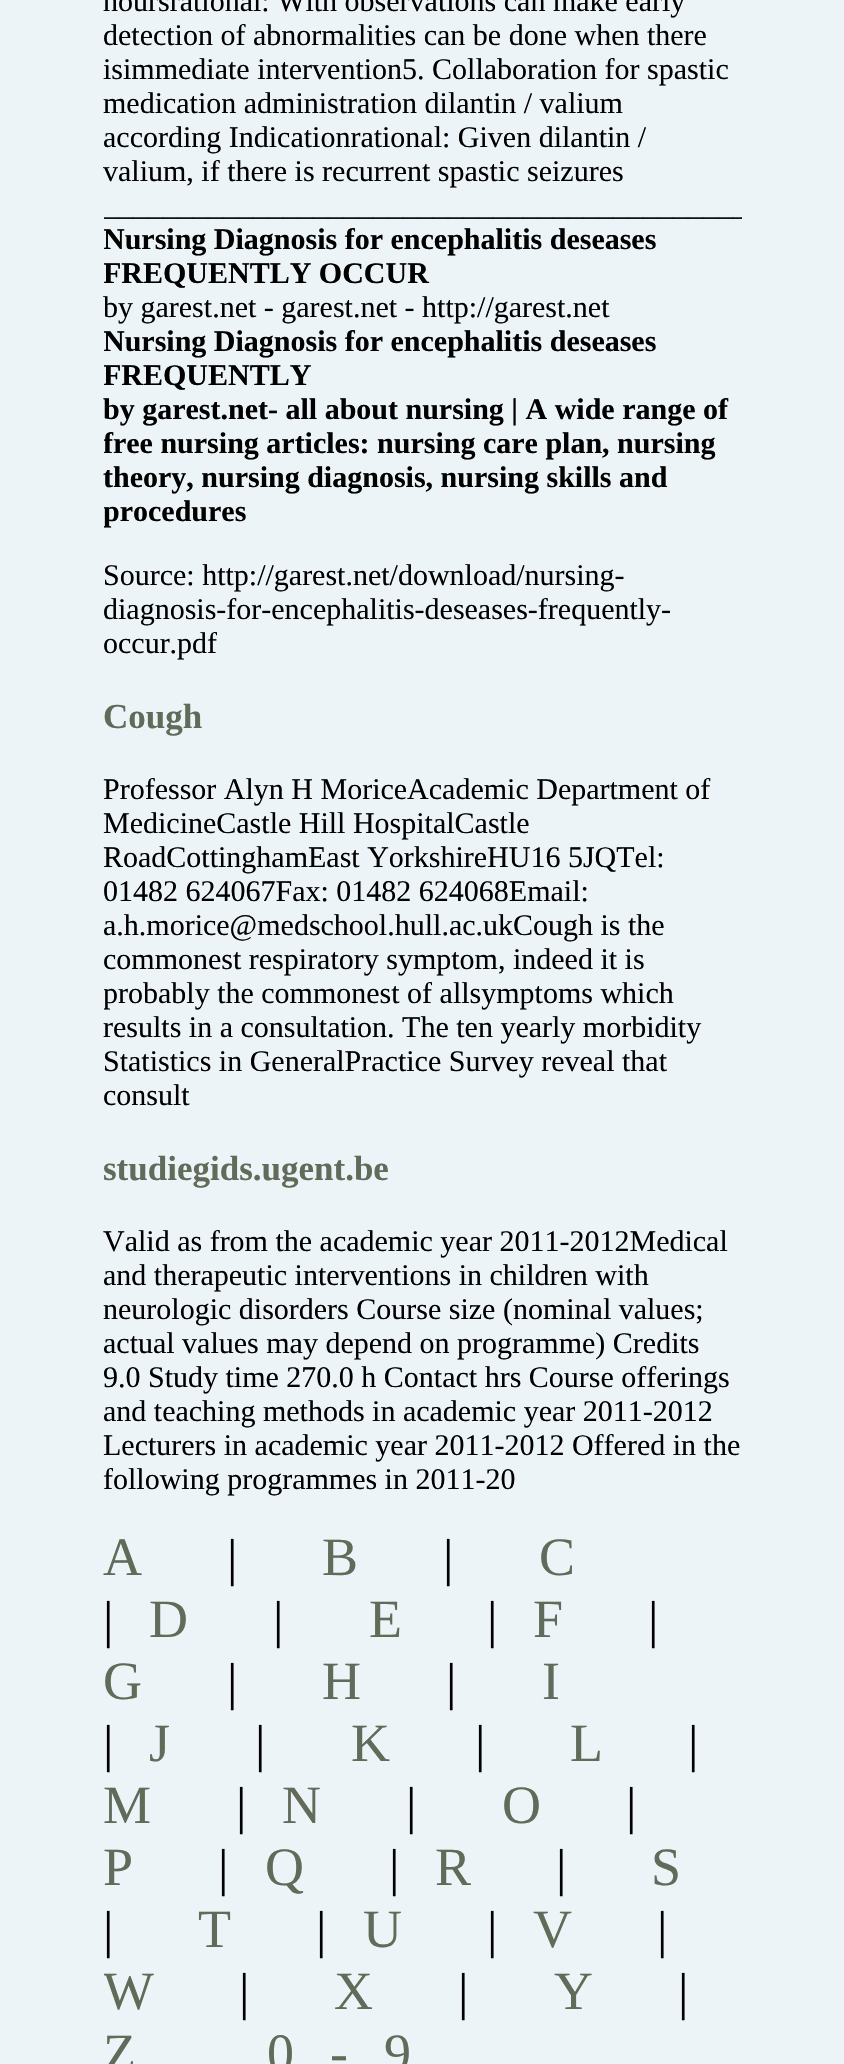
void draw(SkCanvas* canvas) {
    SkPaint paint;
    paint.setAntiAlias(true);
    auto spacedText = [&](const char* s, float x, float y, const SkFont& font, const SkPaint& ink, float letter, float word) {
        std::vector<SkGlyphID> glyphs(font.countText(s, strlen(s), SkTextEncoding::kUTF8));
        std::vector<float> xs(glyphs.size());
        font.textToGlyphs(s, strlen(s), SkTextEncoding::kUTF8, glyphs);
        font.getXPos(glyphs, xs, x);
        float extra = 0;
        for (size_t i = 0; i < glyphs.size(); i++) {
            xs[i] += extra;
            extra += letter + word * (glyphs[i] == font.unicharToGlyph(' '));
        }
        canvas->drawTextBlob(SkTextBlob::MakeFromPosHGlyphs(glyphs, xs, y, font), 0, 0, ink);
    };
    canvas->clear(0xFFECF4F8);
    SkFont font1(fontMgr->matchFamilyStyle("Liberation Serif", SkFontStyle::Normal()), 30);
    font1.setSubpixel(true);
    paint.setColor(0xFF000000);
    canvas->drawString("hoursrational: With observations can make early", 103, 11, font1, paint);
    canvas->drawString("detection of abnormalities can be done when there", 103, 45, font1, paint);
    canvas->drawString("isimmediate intervention5. Collaboration for spastic", 103, 79, font1, paint);
    canvas->drawString("medication administration dilantin / valium", 103, 113, font1, paint);
    canvas->drawString("according Indicationrational: Given dilantin /", 103, 147, font1, paint);
    canvas->drawString("valium, if there is recurrent spastic seizures", 103, 181, font1, paint);
    canvas->save();
    canvas->clipRect(SkRect::MakeXYWH(104, 0, 638, 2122));
    canvas->drawString("___________________________________________", 103, 215, font1, paint);
    SkFont font2(fontMgr->matchFamilyStyle("Liberation Serif", SkFontStyle::Bold()), 30);
    font2.setSubpixel(true);
    canvas->drawString("Nursing Diagnosis for encephalitis deseases", 103, 249, font2, paint);
    canvas->drawString("FREQUENTLY OCCUR", 103, 283, font2, paint);
    canvas->restore();
    canvas->drawString("by garest.net - garest.net - http://garest.net", 103, 317, font1, paint);
    canvas->save();
    canvas->clipRect(SkRect::MakeXYWH(104, 0, 638, 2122));
    canvas->drawString("Nursing Diagnosis for encephalitis deseases", 103, 351, font2, paint);
    canvas->drawString("FREQUENTLY", 103, 385, font2, paint);
    canvas->restore();
    canvas->drawString("by garest.net- all about nursing | A wide range of", 103, 419, font2, paint);
    canvas->save();
    canvas->clipRect(SkRect::MakeXYWH(104, 0, 638, 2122));
    canvas->drawString("free nursing articles: nursing care plan, nursing", 103, 453, font2, paint);
    canvas->restore();
    canvas->drawString("theory, nursing diagnosis, nursing skills and", 103, 487, font2, paint);
    canvas->save();
    canvas->clipRect(SkRect::MakeXYWH(104, 0, 638, 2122));
    canvas->drawString("procedures", 103, 521, font2, paint);
    canvas->restore();
    canvas->drawString("Source: http://garest.net/download/nursing-", 103, 585, font1, paint);
    canvas->drawString("diagnosis-for-encephalitis-deseases-frequently-", 103, 619, font1, paint);
    canvas->drawString("occur.pdf", 103, 653, font1, paint);
    SkFont font3(fontMgr->matchFamilyStyle("Liberation Serif", SkFontStyle::Bold()), 35);
    font3.setSubpixel(true);
    paint.setColor(0xFF626B5A);
    canvas->drawString("Cough", 103, 728, font3, paint);
    paint.setColor(0xFF000000);
    canvas->drawString("Professor Alyn H MoriceAcademic Department of", 103, 799, font1, paint);
    canvas->drawString("MedicineCastle Hill HospitalCastle", 103, 833, font1, paint);
    canvas->drawString("RoadCottinghamEast YorkshireHU16 5JQTel:", 103, 867, font1, paint);
    canvas->drawString("01482 624067Fax: 01482 624068Email:", 103, 901, font1, paint);
    canvas->drawString("a.h.morice@medschool.hull.ac.ukCough is the", 103, 935, font1, paint);
    canvas->drawString("commonest respiratory symptom, indeed it is", 103, 969, font1, paint);
    canvas->save();
    canvas->clipRect(SkRect::MakeXYWH(104, 0, 638, 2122));
    canvas->drawString("probably the commonest of allsymptoms which", 103, 1003, font1, paint);
    canvas->restore();
    canvas->drawString("results in a consultation. The ten yearly morbidity", 103, 1037, font1, paint);
    canvas->drawString("Statistics in GeneralPractice Survey reveal that", 103, 1071, font1, paint);
    canvas->drawString("consult", 103, 1105, font1, paint);
    paint.setColor(0xFF626B5A);
    canvas->drawString("studiegids.ugent.be", 103, 1180, font3, paint);
    paint.setColor(0xFF000000);
    canvas->drawString("Valid as from the academic year 2011-2012Medical", 103, 1251, font1, paint);
    canvas->drawString("and therapeutic interventions in children with", 103, 1285, font1, paint);
    canvas->drawString("neurologic disorders Course size (nominal values;", 103, 1319, font1, paint);
    canvas->drawString("actual values may depend on programme) Credits", 103, 1353, font1, paint);
    canvas->drawString("9.0 Study time 270.0 h Contact hrs Course offerings", 103, 1387, font1, paint);
    canvas->drawString("and teaching methods in academic year 2011-2012", 103, 1421, font1, paint);
    canvas->drawString("Lecturers in academic year 2011-2012 Offered in the", 103, 1455, font1, paint);
    canvas->drawString("following programmes in 2011-20", 103, 1489, font1, paint);
    SkFont font4(fontMgr->matchFamilyStyle("Liberation Serif", SkFontStyle::Normal()), 54);
    font4.setSubpixel(true);
    paint.setColor(0xFF626B5A);
    spacedText("A", 103, 1575, font4, paint, 36, 0);
    SkFont font5(fontMgr->matchFamilyStyle("Liberation Serif", SkFontStyle::Normal()), 52);
    font5.setSubpixel(true);
    paint.setColor(0xFF000000);
    spacedText("|", 227, 1575, font5, paint, 36, 0);
    paint.setColor(0xFF626B5A);
    spacedText("B", 322, 1575, font4, paint, 36, 0);
    paint.setColor(0xFF000000);
    spacedText("|", 443, 1575, font5, paint, 36, 0);
    paint.setColor(0xFF626B5A);
    spacedText("C", 539, 1575, font4, paint, 36, 0);
    paint.setColor(0xFF000000);
    spacedText("|", 103, 1637, font5, paint, 36, 0);
    paint.setColor(0xFF626B5A);
    spacedText("D", 149, 1637, font4, paint, 36, 0);
    paint.setColor(0xFF000000);
    spacedText("|", 273, 1637, font5, paint, 36, 0);
    paint.setColor(0xFF626B5A);
    spacedText("E", 369, 1637, font4, paint, 36, 0);
    paint.setColor(0xFF000000);
    spacedText("|", 487, 1637, font5, paint, 36, 0);
    paint.setColor(0xFF626B5A);
    spacedText("F", 533, 1637, font4, paint, 36, 0);
    paint.setColor(0xFF000000);
    spacedText("|", 648, 1637, font5, paint, 36, 0);
    paint.setColor(0xFF626B5A);
    spacedText("G", 103, 1699, font4, paint, 36, 0);
    paint.setColor(0xFF000000);
    spacedText("|", 227, 1699, font5, paint, 36, 0);
    paint.setColor(0xFF626B5A);
    spacedText("H", 322, 1699, font4, paint, 36, 0);
    paint.setColor(0xFF000000);
    spacedText("|", 446, 1699, font5, paint, 36, 0);
    paint.setColor(0xFF626B5A);
    spacedText("I", 542, 1699, font4, paint, 36, 0);
    paint.setColor(0xFF000000);
    spacedText("|", 103, 1761, font5, paint, 36, 0);
    paint.setColor(0xFF626B5A);
    spacedText("J", 149, 1761, font4, paint, 36, 0);
    paint.setColor(0xFF000000);
    spacedText("|", 255, 1761, font5, paint, 36, 0);
    paint.setColor(0xFF626B5A);
    spacedText("K", 351, 1761, font4, paint, 36, 0);
    paint.setColor(0xFF000000);
    spacedText("|", 475, 1761, font5, paint, 36, 0);
    paint.setColor(0xFF626B5A);
    spacedText("L", 570, 1761, font4, paint, 36, 0);
    paint.setColor(0xFF000000);
    spacedText("|", 688, 1761, font5, paint, 36, 0);
    paint.setColor(0xFF626B5A);
    spacedText("M", 103, 1823, font4, paint, 36, 0);
    paint.setColor(0xFF000000);
    spacedText("|", 236, 1823, font5, paint, 36, 0);
    paint.setColor(0xFF626B5A);
    spacedText("N", 282, 1823, font4, paint, 36, 0);
    paint.setColor(0xFF000000);
    spacedText("|", 406, 1823, font5, paint, 36, 0);
    paint.setColor(0xFF626B5A);
    spacedText("O", 502, 1823, font4, paint, 36, 0);
    paint.setColor(0xFF000000);
    spacedText("|", 626, 1823, font5, paint, 36, 0);
    paint.setColor(0xFF626B5A);
    spacedText("P", 103, 1885, font4, paint, 36, 0);
    paint.setColor(0xFF000000);
    spacedText("|", 218, 1885, font5, paint, 36, 0);
    paint.setColor(0xFF626B5A);
    spacedText("Q", 265, 1885, font4, paint, 36, 0);
    paint.setColor(0xFF000000);
    spacedText("|", 389, 1885, font5, paint, 36, 0);
    paint.setColor(0xFF626B5A);
    spacedText("R", 435, 1885, font4, paint, 36, 0);
    paint.setColor(0xFF000000);
    spacedText("|", 556, 1885, font5, paint, 36, 0);
    paint.setColor(0xFF626B5A);
    spacedText("S", 651, 1885, font4, paint, 36, 0);
    paint.setColor(0xFF000000);
    spacedText("|", 103, 1947, font5, paint, 36, 0);
    paint.setColor(0xFF626B5A);
    spacedText("T", 198, 1947, font4, paint, 36, 0);
    paint.setColor(0xFF000000);
    spacedText("|", 316, 1947, font5, paint, 36, 0);
    paint.setColor(0xFF626B5A);
    spacedText("U", 363, 1947, font4, paint, 36, 0);
    paint.setColor(0xFF000000);
    spacedText("|", 487, 1947, font5, paint, 36, 0);
    paint.setColor(0xFF626B5A);
    spacedText("V", 533, 1947, font4, paint, 36, 0);
    paint.setColor(0xFF000000);
    spacedText("|", 657, 1947, font5, paint, 36, 0);
    canvas->save();
    canvas->clipRect(SkRect::MakeXYWH(104, 0, 638, 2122));
    paint.setColor(0xFF626B5A);
    spacedText("W", 103, 2009, font4, paint, 36, 0);
    canvas->restore();
    paint.setColor(0xFF000000);
    spacedText("|", 239, 2009, font5, paint, 36, 0);
    paint.setColor(0xFF626B5A);
    spacedText("X", 334, 2009, font4, paint, 36, 0);
    paint.setColor(0xFF000000);
    spacedText("|", 458, 2009, font5, paint, 36, 0);
    paint.setColor(0xFF626B5A);
    spacedText("Y", 554, 2009, font4, paint, 36, 0);
    paint.setColor(0xFF000000);
    spacedText("|", 678, 2009, font5, paint, 36, 0);
    paint.setColor(0xFF626B5A);
    spacedText("Z", 103, 2071, font4, paint, 36, 0);
    spacedText("0-9", 267, 2071, font4, paint, 36, 0);
}
